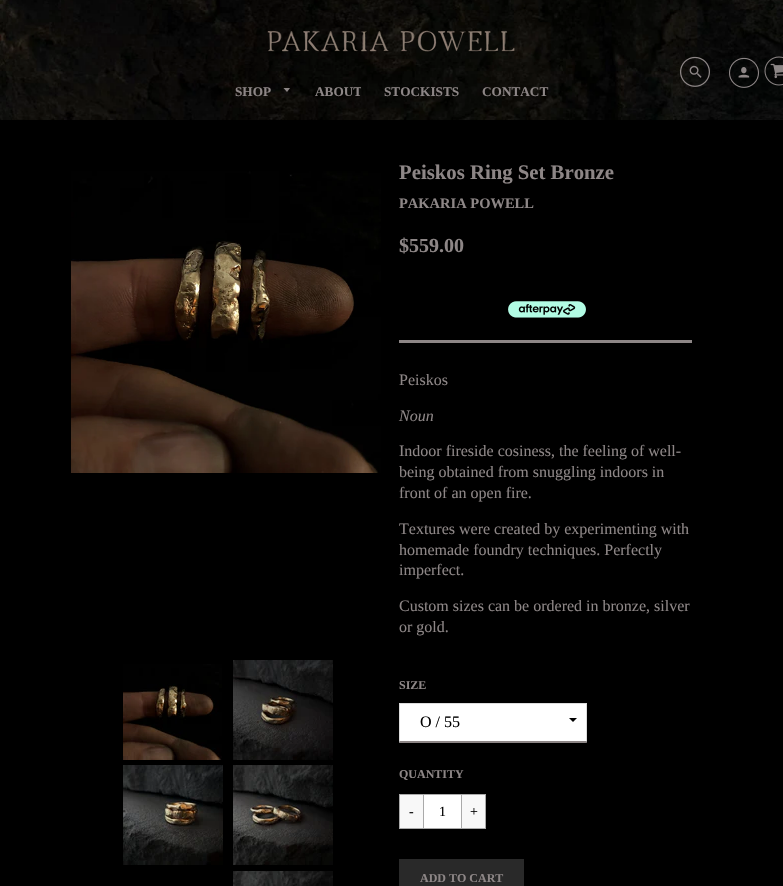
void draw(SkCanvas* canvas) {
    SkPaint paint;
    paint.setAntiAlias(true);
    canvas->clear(0xFF000000);
    canvas->drawImageRect(SkImages::DeferredFromEncodedData(SkData::MakeFromFileName("img1.png")), SkRect::MakeXYWH(0, 0, 783, 120), SkSamplingOptions());
    canvas->drawImageRect(SkImages::DeferredFromEncodedData(SkData::MakeFromFileName("img2.png")), SkRect::MakeXYWH(680, 56, 30, 31), SkSamplingOptions());
    canvas->drawImageRect(SkImages::DeferredFromEncodedData(SkData::MakeFromFileName("img3.png")), SkRect::MakeXYWH(729, 57, 30, 31), SkSamplingOptions());
    canvas->drawImageRect(SkImages::DeferredFromEncodedData(SkData::MakeFromFileName("img4.png")), SkRect::MakeXYWH(764, 56, 19, 30), SkSamplingOptions());
    canvas->drawImageRect(SkImages::DeferredFromEncodedData(SkData::MakeFromFileName("img5.png")), SkRect::MakeXYWH(267, 30, 248, 22), SkSamplingOptions());
    SkFont font1(fontMgr->matchFamilyStyle("Liberation Serif", SkFontStyle::Bold()), 13.25f);
    font1.setSubpixel(true);
    paint.setColor(0xFF8D8686);
    canvas->drawString("SHOP", 235, 96, font1, paint);
    canvas->drawPath(SkPathBuilder().moveTo(283.5f, 88).lineTo(287, 92).lineTo(290, 88).close().detach(), paint);
    canvas->save();
    canvas->clipRect(SkRect::MakeXYWH(315, 83, 46, 18));
    canvas->drawString("ABOUT", 315, 96, font1, paint);
    canvas->restore();
    canvas->drawString("STOCKISTS", 384, 96, font1, paint);
    canvas->drawString("CONTACT", 482, 96, font1, paint);
    canvas->drawImageRect(SkImages::DeferredFromEncodedData(SkData::MakeFromFileName("img6.png")), SkRect::MakeXYWH(71, 171, 310, 302), SkSamplingOptions());
    canvas->drawImageRect(SkImages::DeferredFromEncodedData(SkData::MakeFromFileName("img7.png")), SkRect::MakeXYWH(123, 664, 99, 96), SkSamplingOptions());
    canvas->drawImageRect(SkImages::DeferredFromEncodedData(SkData::MakeFromFileName("img8.png")), SkRect::MakeXYWH(233, 660, 100, 100), SkSamplingOptions());
    canvas->drawImageRect(SkImages::DeferredFromEncodedData(SkData::MakeFromFileName("img9.png")), SkRect::MakeXYWH(123, 765, 100, 100), SkSamplingOptions());
    canvas->drawImageRect(SkImages::DeferredFromEncodedData(SkData::MakeFromFileName("img10.png")), SkRect::MakeXYWH(233, 765, 100, 100), SkSamplingOptions());
    canvas->drawImageRect(SkImages::DeferredFromEncodedData(SkData::MakeFromFileName("img11.png")), SkRect::MakeXYWH(233, 871, 100, 15), SkSamplingOptions());
    SkFont font2(fontMgr->matchFamilyStyle("Liberation Serif", SkFontStyle::Bold()), 20.75f);
    font2.setSubpixel(true);
    canvas->drawString("Peiskos Ring Set Bronze", 399, 179, font2, paint);
    SkFont font3(fontMgr->matchFamilyStyle("Liberation Serif", SkFontStyle::Bold()), 14.5f);
    font3.setSubpixel(true);
    canvas->drawString("PAKARIA POWELL", 399, 208, font3, paint);
    SkFont font4(fontMgr->matchFamilyStyle("Liberation Serif", SkFontStyle::Bold()), 20);
    font4.setSubpixel(true);
    canvas->drawString("$559.00", 399, 252, font4, paint);
    canvas->drawImageRect(SkImages::DeferredFromEncodedData(SkData::MakeFromFileName("img12.png")), SkRect::MakeXYWH(508, 301, 78, 17), SkSamplingOptions());
    canvas->drawRect(SkRect::MakeXYWH(399, 340, 293, 3), paint);
    SkFont font5(fontMgr->matchFamilyStyle("Liberation Serif", SkFontStyle::Normal()), 16);
    font5.setSubpixel(true);
    canvas->drawString("Peiskos", 399, 385, font5, paint);
    SkFont font6(fontMgr->matchFamilyStyle("Liberation Serif", SkFontStyle::Italic()), 16);
    font6.setSubpixel(true);
    canvas->drawString("Noun", 399, 421, font6, paint);
    canvas->drawString("Indoor fireside cosiness, the feeling of well-", 399, 456, font5, paint);
    canvas->drawString("being obtained from snuggling indoors in", 399, 477, font5, paint);
    canvas->drawString("front of an open fire.", 399, 498, font5, paint);
    canvas->drawString("Textures were created by experimenting with", 399, 534, font5, paint);
    canvas->drawString("homemade foundry techniques. Perfectly", 399, 555, font5, paint);
    canvas->drawString("imperfect.", 399, 575, font5, paint);
    canvas->drawString("Custom sizes can be ordered in bronze, silver", 399, 611, font5, paint);
    canvas->drawString("or gold.", 399, 632, font5, paint);
    SkFont font7(fontMgr->matchFamilyStyle("Liberation Serif", SkFontStyle::Bold()), 12);
    font7.setSubpixel(true);
    canvas->drawString("SIZE", 399, 689, font7, paint);
    paint.setColor(0xFFFFFFFF);
    canvas->drawRect(SkRect::MakeXYWH(400, 704, 186, 37), paint);
    paint.setColor(0xFFDCDCDC);
    canvas->drawRect(SkRect::MakeXYWH(399, 703, 188, 1), paint);
    canvas->drawPath(SkPathBuilder().moveTo(587, 703).lineTo(587, 743).lineTo(586, 741).lineTo(586, 704).close().detach(), paint);
    paint.setColor(0xFF8D8686);
    canvas->drawPath(SkPathBuilder().moveTo(587, 743).lineTo(399, 743).lineTo(400, 741).lineTo(586, 741).close().detach(), paint);
    paint.setColor(0xFFDCDCDC);
    canvas->drawPath(SkPathBuilder().moveTo(399, 743).lineTo(399, 703).lineTo(400, 704).lineTo(400, 741).close().detach(), paint);
    paint.setColor(0xFF000000);
    canvas->drawString("O / 55", 420, 727, font5, paint);
    canvas->drawPath(SkPathBuilder().moveTo(569, 718).lineTo(577, 718).lineTo(573, 722).close().detach(), paint);
    paint.setColor(0xFF8D8686);
    canvas->drawString("QUANTITY", 399, 778, font7, paint);
    paint.setColor(0xFFAAAAAA);
    canvas->drawRect(SkRect::MakeXYWH(422, 794, 40, 1), paint);
    canvas->drawRect(SkRect::MakeXYWH(422, 828, 40, 1), paint);
    paint.setColor(0xFFF8F8F8);
    canvas->drawRect(SkRect::MakeXYWH(399.5f, 794.5f, 24, 34), paint);
    paint.setStyle(SkPaint::kStroke_Style);
    paint.setStrokeWidth(1);
    paint.setColor(0xFFAAAAAA);
    canvas->drawRect(SkRect::MakeXYWH(399.5f, 794.5f, 24, 34), paint);
    SkFont font8(fontMgr->matchFamilyStyle("Liberation Serif", SkFontStyle::Normal()), 14);
    font8.setSubpixel(true);
    paint.setStyle(SkPaint::kFill_Style);
    paint.setColor(0xFF000000);
    canvas->drawString("-", 409, 816, font8, paint);
    paint.setColor(0xFFFFFFFF);
    canvas->drawRect(SkRect::MakeXYWH(424, 795, 37, 33), paint);
    paint.setColor(0xFF000000);
    canvas->drawString("1", 439, 816, font8, paint);
    paint.setColor(0xFFF8F8F8);
    canvas->drawRect(SkRect::MakeXYWH(461.5f, 794.5f, 24, 34), paint);
    paint.setStyle(SkPaint::kStroke_Style);
    paint.setColor(0xFFAAAAAA);
    canvas->drawRect(SkRect::MakeXYWH(461.5f, 794.5f, 24, 34), paint);
    paint.setStyle(SkPaint::kFill_Style);
    paint.setColor(0xFF000000);
    canvas->drawString("+", 470, 816, font8, paint);
    paint.setColor(0xFF292929);
    canvas->drawRect(SkRect::MakeXYWH(399, 859, 125, 27), paint);
    paint.setColor(0xFF8D8686);
    canvas->drawString("ADD TO CART", 420, 882, font7, paint);
}
